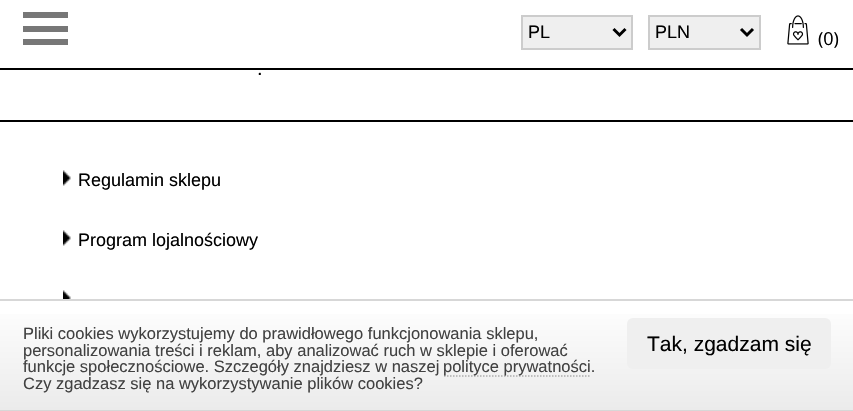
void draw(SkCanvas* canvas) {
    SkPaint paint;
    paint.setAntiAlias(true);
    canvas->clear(0xFFFFFFFF);
    paint.setColor(0xFF000000);
    canvas->drawRect(SkRect::MakeXYWH(0, 68, 853, 2), paint);
    paint.setColor(0xFF777777);
    canvas->drawRect(SkRect::MakeXYWH(23, 12, 45, 6), paint);
    canvas->drawRect(SkRect::MakeXYWH(23, 26, 45, 6), paint);
    canvas->drawRect(SkRect::MakeXYWH(23, 39, 45, 6), paint);
    paint.setColor(0xFFEFEFEF);
    canvas->drawRect(SkRect::MakeXYWH(522, 16, 110, 33), paint);
    paint.setStyle(SkPaint::kStroke_Style);
    paint.setStrokeWidth(2);
    paint.setColor(0xFFCCCCCC);
    canvas->drawRect(SkRect::MakeXYWH(522, 16, 110, 33), paint);
    paint.setStrokeWidth(3);
    paint.setColor(0xFF000000);
    canvas->drawPath(SkPathBuilder().moveTo(613.5f, 29).lineTo(619.5f, 35).lineTo(625.5f, 29).detach(), paint);
    SkFont font1(fontMgr->matchFamilyStyle("Liberation Sans", SkFontStyle::Normal()), 18);
    font1.setSubpixel(true);
    paint.setStyle(SkPaint::kFill_Style);
    canvas->drawString("PL", 528, 38, font1, paint);
    paint.setColor(0xFFEFEFEF);
    canvas->drawRect(SkRect::MakeXYWH(649, 16, 111, 33), paint);
    paint.setStyle(SkPaint::kStroke_Style);
    paint.setStrokeWidth(2);
    paint.setColor(0xFFCCCCCC);
    canvas->drawRect(SkRect::MakeXYWH(649, 16, 111, 33), paint);
    paint.setStrokeWidth(3);
    paint.setColor(0xFF000000);
    canvas->drawPath(SkPathBuilder().moveTo(741, 29).lineTo(747, 35).lineTo(753, 29).detach(), paint);
    paint.setStyle(SkPaint::kFill_Style);
    canvas->drawString("PLN", 655, 38, font1, paint);
    canvas->drawImageRect(SkImages::DeferredFromEncodedData(SkData::MakeFromFileName("img1.png")), SkRect::MakeXYWH(787, 15, 22, 30), SkSamplingOptions());
    SkFont font2(fontMgr->matchFamilyStyle("Open Sans", SkFontStyle::Normal()), 18);
    font2.setSubpixel(true);
    canvas->drawString("(0)", 818, 45, font2, paint);
    SkFont font3(fontMgr->matchFamilyStyle("Liberation Sans", SkFontStyle::Normal()), 20);
    font3.setSubpixel(true);
    canvas->drawString(".", 257, 75, font3, paint);
    canvas->drawRect(SkRect::MakeXYWH(0, 120, 853, 2), paint);
    canvas->drawImageRect(SkImages::DeferredFromEncodedData(SkData::MakeFromFileName("img2.png")), SkRect::MakeXYWH(63, 170, 8, 16), SkSamplingOptions());
    canvas->drawString("Regulamin sklepu", 78, 186, font1, paint);
    canvas->drawImageRect(SkImages::DeferredFromEncodedData(SkData::MakeFromFileName("img2.png")), SkRect::MakeXYWH(63, 230, 8, 16), SkSamplingOptions());
    canvas->drawString("Program lojalnościowy", 78, 246, font1, paint);
    canvas->drawImageRect(SkImages::DeferredFromEncodedData(SkData::MakeFromFileName("img3.png")), SkRect::MakeXYWH(63, 290, 8, 9), SkSamplingOptions());
    {
        const SkColor colors[] = {0xFFFFFFFF, 0xFFEBEBEB};
        const float stops[] = {0, 1};
        const SkPoint ends[] = {{427, 300}, {427, 410}};
        paint.setShader(SkGradientShader::MakeLinear(ends, colors, stops, 2, SkTileMode::kClamp));
        paint.setAlpha(255);
    }
    canvas->drawRect(SkRect::MakeXYWH(0, 314, 853, 96), paint);
    paint.setShader(nullptr);
    paint.setColor(0xFFD7D7D7);
    canvas->drawRect(SkRect::MakeXYWH(0, 299, 853, 2), paint);
    canvas->drawRect(SkRect::MakeXYWH(0, 410, 853, 1), paint);
    SkFont font4(fontMgr->matchFamilyStyle("Liberation Sans", SkFontStyle::Normal()), 16.5f);
    font4.setSubpixel(true);
    paint.setColor(0xFF414141);
    canvas->drawString("Pliki cookies wykorzystujemy do prawidłowego funkcjonowania sklepu,", 23, 339, font4, paint);
    canvas->drawString("personalizowania treści i reklam, aby analizować ruch w sklepie i oferować", 23, 356, font4, paint);
    canvas->drawString("funkcje społecznościowe. Szczegóły znajdziesz w naszej", 23, 372, font4, paint);
    paint.setStyle(SkPaint::kStroke_Style);
    paint.setStrokeWidth(1.5f);
    paint.setColor(0xFFAEAEAE);
    paint.setPathEffect(SkDashPathEffect::Make({{1.5f, 1.5f}}, 0));
    canvas->drawPath(SkPathBuilder().moveTo(444, 376).lineTo(591, 376).detach(), paint);
    paint.setPathEffect(nullptr);
    paint.setStyle(SkPaint::kFill_Style);
    paint.setColor(0xFF414141);
    canvas->drawString("polityce prywatności.", 443, 372, font4, paint);
    canvas->drawString("Czy zgadzasz się na wykorzystywanie plików cookies?", 23, 389, font4, paint);
    paint.setColor(0xFFEFEFEF);
    canvas->drawRoundRect(SkRect::MakeXYWH(627, 318, 204, 51), 6, 6, paint);
    SkFont font5(fontMgr->matchFamilyStyle("Liberation Sans", SkFontStyle::Normal()), 21);
    font5.setSubpixel(true);
    paint.setColor(0xFF000000);
    canvas->drawString("Tak, zgadzam się", 647, 351, font5, paint);
}
